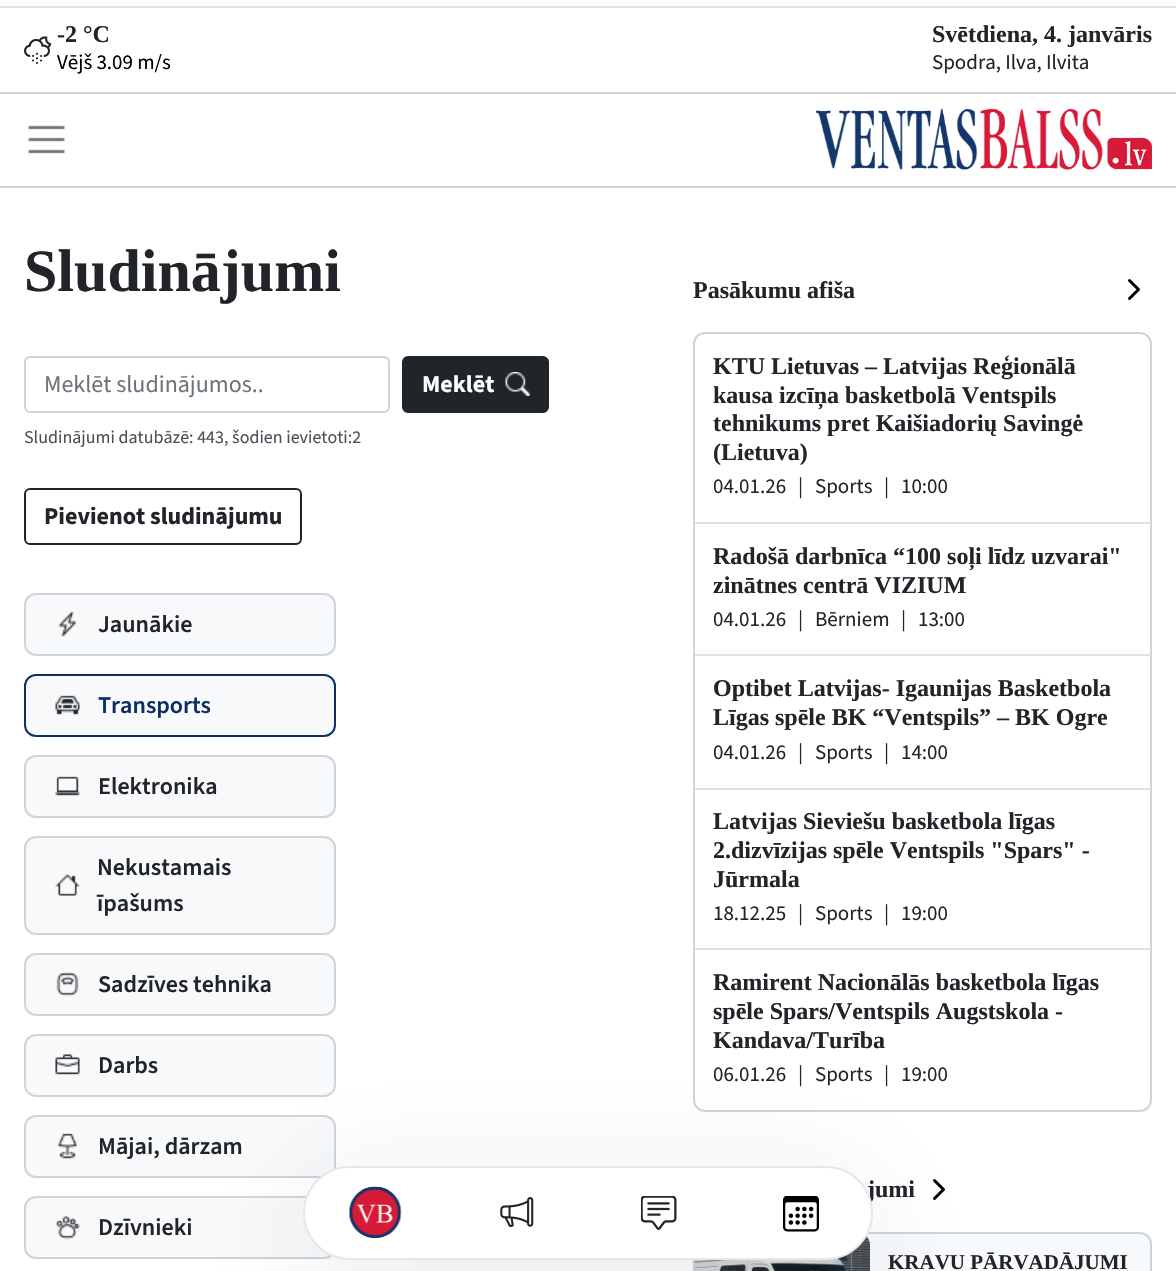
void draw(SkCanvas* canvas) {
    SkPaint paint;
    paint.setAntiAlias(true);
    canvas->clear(0xFFFFFFFF);
    paint.setColor(0xFFDEE2E6);
    canvas->drawRect(SkRect::MakeXYWH(0, 6, 1176, 2), paint);
    canvas->drawImageRect(SkImages::DeferredFromEncodedData(SkData::MakeFromFileName("img1.png")), SkRect::MakeXYWH(24, 36, 28, 28), SkSamplingOptions());
    SkFont font1(fontMgr->matchFamilyStyle("Liberation Serif", SkFontStyle::Bold()), 24);
    font1.setSubpixel(true);
    paint.setColor(0xFF212529);
    canvas->drawString("-2 °C", 57, 42, font1, paint);
    SkFont font2(fontMgr->matchFamilyStyle("Source Sans 3", SkFontStyle::Normal()), 21);
    font2.setSubpixel(true);
    paint.setColor(0xFF000000);
    canvas->drawString("Vējš 3.09 m/s", 57, 69, font2, paint);
    paint.setColor(0xFF212529);
    canvas->drawString("Svētdiena, 4. janvāris", 932, 42, font1, paint);
    canvas->drawString("Spodra, Ilva, Ilvita", 932, 69, font2, paint);
    paint.setColor(0xFFCED4DA);
    canvas->drawRect(SkRect::MakeXYWH(0, 92, 1176, 2), paint);
    canvas->drawRect(SkRect::MakeXYWH(0, 186, 1176, 2), paint);
    canvas->drawImageRect(SkImages::DeferredFromEncodedData(SkData::MakeFromFileName("img2.png")), SkRect::MakeXYWH(28, 125, 37, 29), SkSamplingOptions());
    canvas->drawImageRect(SkImages::DeferredFromEncodedData(SkData::MakeFromFileName("img3.png")), SkRect::MakeXYWH(816, 109, 336, 61), SkSamplingOptions());
    SkFont font3(fontMgr->matchFamilyStyle("Liberation Serif", SkFontStyle::Bold()), 60);
    font3.setSubpixel(true);
    paint.setColor(0xFF212529);
    canvas->drawString("Sludinājumi", 24, 291, font3, paint);
    paint.setStyle(SkPaint::kStroke_Style);
    paint.setStrokeWidth(2);
    paint.setColor(0xFFCED4DA);
    canvas->drawRoundRect(SkRect::MakeXYWH(25, 357, 364, 55), 5, 5, paint);
    SkFont font4(fontMgr->matchFamilyStyle("Source Sans 3", SkFontStyle::Normal()), 24);
    font4.setSubpixel(true);
    paint.setStyle(SkPaint::kFill_Style);
    paint.setColor(0xFF6C757D);
    canvas->drawString("Meklēt sludinājumos..", 44, 392, font4, paint);
    paint.setColor(0xFF212529);
    canvas->drawRoundRect(SkRect::MakeXYWH(403, 357, 145, 55), 5, 5, paint);
    paint.setStyle(SkPaint::kStroke_Style);
    canvas->drawRoundRect(SkRect::MakeXYWH(403, 357, 145, 55), 5, 5, paint);
    SkFont font5(fontMgr->matchFamilyStyle("Source Sans 3", SkFontStyle::Bold()), 24);
    font5.setSubpixel(true);
    paint.setStyle(SkPaint::kFill_Style);
    paint.setColor(0xFFFFFFFF);
    canvas->drawString("Meklēt", 422, 392, font5, paint);
    canvas->drawImageRect(SkImages::DeferredFromEncodedData(SkData::MakeFromFileName("img4.png")), SkRect::MakeXYWH(505, 372, 25, 24), SkSamplingOptions());
    SkFont font6(fontMgr->matchFamilyStyle("Source Sans 3", SkFontStyle::Normal()), 18);
    font6.setSubpixel(true);
    paint.setColor(0xFF495057);
    canvas->drawString("Sludinājumi datubāzē: 443, šodien ievietoti:2", 24, 443, font6, paint);
    paint.setStyle(SkPaint::kStroke_Style);
    paint.setColor(0xFF212529);
    canvas->drawRoundRect(SkRect::MakeXYWH(25, 489, 276, 55), 5, 5, paint);
    paint.setStyle(SkPaint::kFill_Style);
    canvas->drawString("Pievienot sludinājumu", 44, 524, font5, paint);
    paint.setColor(0xFFF8F9FA);
    canvas->drawRoundRect(SkRect::MakeXYWH(25, 594, 310, 61), 11, 11, paint);
    paint.setStyle(SkPaint::kStroke_Style);
    paint.setColor(0xFFCED4DA);
    canvas->drawRoundRect(SkRect::MakeXYWH(25, 594, 310, 61), 11, 11, paint);
    canvas->drawImageRect(SkImages::DeferredFromEncodedData(SkData::MakeFromFileName("img5.png")), SkRect::MakeXYWH(58, 611, 19, 26), SkSamplingOptions());
    SkFont font7(fontMgr->matchFamilyStyle("Source Sans 3", SkFontStyle(600, SkFontStyle::kNormal_Width, SkFontStyle::kUpright_Slant)), 24);
    font7.setSubpixel(true);
    paint.setStyle(SkPaint::kFill_Style);
    paint.setColor(0xFF212529);
    canvas->drawString("Jaunākie", 98, 632, font7, paint);
    paint.setColor(0xFFF8F9FA);
    canvas->drawRoundRect(SkRect::MakeXYWH(25, 675, 310, 61), 11, 11, paint);
    paint.setStyle(SkPaint::kStroke_Style);
    paint.setColor(0xFF0C2F64);
    canvas->drawRoundRect(SkRect::MakeXYWH(25, 675, 310, 61), 11, 11, paint);
    canvas->drawImageRect(SkImages::DeferredFromEncodedData(SkData::MakeFromFileName("img6.png")), SkRect::MakeXYWH(55, 695, 25, 20), SkSamplingOptions());
    paint.setStyle(SkPaint::kFill_Style);
    canvas->drawString("Transports", 98, 713, font7, paint);
    paint.setColor(0xFFF8F9FA);
    canvas->drawRoundRect(SkRect::MakeXYWH(25, 756, 310, 61), 11, 11, paint);
    paint.setStyle(SkPaint::kStroke_Style);
    paint.setColor(0xFFCED4DA);
    canvas->drawRoundRect(SkRect::MakeXYWH(25, 756, 310, 61), 11, 11, paint);
    canvas->drawImageRect(SkImages::DeferredFromEncodedData(SkData::MakeFromFileName("img7.png")), SkRect::MakeXYWH(55, 776, 25, 20), SkSamplingOptions());
    paint.setStyle(SkPaint::kFill_Style);
    paint.setColor(0xFF212529);
    canvas->drawString("Elektronika", 98, 794, font7, paint);
    paint.setColor(0xFFF8F9FA);
    canvas->drawRoundRect(SkRect::MakeXYWH(25, 837, 310, 97), 11, 11, paint);
    paint.setStyle(SkPaint::kStroke_Style);
    paint.setColor(0xFFCED4DA);
    canvas->drawRoundRect(SkRect::MakeXYWH(25, 837, 310, 97), 11, 11, paint);
    canvas->drawImageRect(SkImages::DeferredFromEncodedData(SkData::MakeFromFileName("img8.png")), SkRect::MakeXYWH(55, 874, 25, 22), SkSamplingOptions());
    paint.setStyle(SkPaint::kFill_Style);
    paint.setColor(0xFF212529);
    canvas->drawString("Nekustamais", 97, 875, font7, paint);
    canvas->drawString("īpašums", 97, 911, font7, paint);
    paint.setColor(0xFFF8F9FA);
    canvas->drawRoundRect(SkRect::MakeXYWH(25, 954, 310, 61), 11, 11, paint);
    paint.setStyle(SkPaint::kStroke_Style);
    paint.setColor(0xFFCED4DA);
    canvas->drawRoundRect(SkRect::MakeXYWH(25, 954, 310, 61), 11, 11, paint);
    canvas->drawImageRect(SkImages::DeferredFromEncodedData(SkData::MakeFromFileName("img9.png")), SkRect::MakeXYWH(56, 972, 23, 25), SkSamplingOptions());
    paint.setStyle(SkPaint::kFill_Style);
    paint.setColor(0xFF212529);
    canvas->drawString("Sadzīves tehnika", 98, 992, font7, paint);
    paint.setColor(0xFFF8F9FA);
    canvas->drawRoundRect(SkRect::MakeXYWH(25, 1035, 310, 61), 11, 11, paint);
    paint.setStyle(SkPaint::kStroke_Style);
    paint.setColor(0xFFCED4DA);
    canvas->drawRoundRect(SkRect::MakeXYWH(25, 1035, 310, 61), 11, 11, paint);
    canvas->drawImageRect(SkImages::DeferredFromEncodedData(SkData::MakeFromFileName("img10.png")), SkRect::MakeXYWH(55, 1054, 25, 21), SkSamplingOptions());
    paint.setStyle(SkPaint::kFill_Style);
    paint.setColor(0xFF212529);
    canvas->drawString("Darbs", 98, 1073, font7, paint);
    paint.setColor(0xFFF8F9FA);
    canvas->drawRoundRect(SkRect::MakeXYWH(25, 1116, 310, 61), 11, 11, paint);
    paint.setStyle(SkPaint::kStroke_Style);
    paint.setColor(0xFFCED4DA);
    canvas->drawRoundRect(SkRect::MakeXYWH(25, 1116, 310, 61), 11, 11, paint);
    canvas->drawImageRect(SkImages::DeferredFromEncodedData(SkData::MakeFromFileName("img11.png")), SkRect::MakeXYWH(58, 1133, 19, 26), SkSamplingOptions());
    paint.setStyle(SkPaint::kFill_Style);
    paint.setColor(0xFF212529);
    canvas->drawString("Mājai, dārzam", 98, 1154, font7, paint);
    paint.setColor(0xFFF8F9FA);
    canvas->drawRoundRect(SkRect::MakeXYWH(25, 1197, 310, 61), 11, 11, paint);
    paint.setStyle(SkPaint::kStroke_Style);
    paint.setColor(0xFFCED4DA);
    canvas->drawRoundRect(SkRect::MakeXYWH(25, 1197, 310, 61), 11, 11, paint);
    canvas->drawImageRect(SkImages::DeferredFromEncodedData(SkData::MakeFromFileName("img12.png")), SkRect::MakeXYWH(55, 1216, 25, 24), SkSamplingOptions());
    paint.setStyle(SkPaint::kFill_Style);
    paint.setColor(0xFF212529);
    canvas->drawString("Dzīvnieki", 98, 1235, font7, paint);
    canvas->drawString("Pasākumu afiša", 693, 298, font1, paint);
    paint.setStyle(SkPaint::kStroke_Style);
    paint.setStrokeWidth(3);
    paint.setStrokeCap(SkPaint::kRound_Cap);
    paint.setStrokeJoin(SkPaint::kRound_Join);
    paint.setColor(0xFF000000);
    canvas->drawPath(SkPathBuilder().moveTo(1129.5f, 298.5f).lineTo(1138.5f, 289.5f).lineTo(1129.5f, 280.5f).detach(), paint);
    paint.setStrokeWidth(2);
    paint.setStrokeCap(SkPaint::kButt_Cap);
    paint.setStrokeJoin(SkPaint::kMiter_Join);
    paint.setColor(0xFFCED4DA);
    canvas->drawRoundRect(SkRect::MakeXYWH(694, 333, 457, 778), 11, 11, paint);
    paint.setStyle(SkPaint::kFill_Style);
    paint.setColor(0xFFDEE2E6);
    canvas->drawRect(SkRect::MakeXYWH(695, 522, 456, 2), paint);
    paint.setColor(0xFF212529);
    canvas->drawString("KTU Lietuvas – Latvijas Reģionālā", 713, 374, font1, paint);
    canvas->drawString("kausa izcīņa basketbolā Ventspils", 713, 403, font1, paint);
    canvas->drawString("tehnikums pret Kaišiadorių Savingė", 713, 431, font1, paint);
    canvas->drawString("(Lietuva)", 713, 460, font1, paint);
    canvas->drawString("04.01.26", 713, 493, font2, paint);
    canvas->drawString("|", 798, 493, font2, paint);
    canvas->drawString("Sports", 815, 493, font2, paint);
    canvas->drawString("|", 884, 493, font2, paint);
    canvas->drawString("10:00", 901, 493, font2, paint);
    paint.setColor(0xFFDEE2E6);
    canvas->drawRect(SkRect::MakeXYWH(695, 654, 456, 2), paint);
    paint.setColor(0xFF212529);
    canvas->drawString("Radošā darbnīca “100 soļi līdz uzvarai\"", 713, 564, font1, paint);
    canvas->drawString("zinātnes centrā VIZIUM", 713, 593, font1, paint);
    canvas->drawString("04.01.26", 713, 626, font2, paint);
    canvas->drawString("|", 798, 626, font2, paint);
    canvas->drawString("Bērniem", 815, 626, font2, paint);
    canvas->drawString("|", 901, 626, font2, paint);
    canvas->drawString("13:00", 918, 626, font2, paint);
    paint.setColor(0xFFDEE2E6);
    canvas->drawRect(SkRect::MakeXYWH(695, 788, 456, 2), paint);
    paint.setColor(0xFF212529);
    canvas->drawString("Optibet Latvijas- Igaunijas Basketbola", 713, 696, font1, paint);
    canvas->drawString("Līgas spēle BK “Ventspils” – BK Ogre", 713, 725, font1, paint);
    canvas->drawString("04.01.26", 713, 759, font2, paint);
    canvas->drawString("|", 798, 759, font2, paint);
    canvas->drawString("Sports", 815, 759, font2, paint);
    canvas->drawString("|", 884, 759, font2, paint);
    canvas->drawString("14:00", 901, 759, font2, paint);
    paint.setColor(0xFFDEE2E6);
    canvas->drawRect(SkRect::MakeXYWH(695, 948, 456, 2), paint);
    paint.setColor(0xFF212529);
    canvas->drawString("Latvijas Sieviešu basketbola līgas", 713, 829, font1, paint);
    canvas->drawString("2.dizvīzijas spēle Ventspils \"Spars\" -", 713, 858, font1, paint);
    canvas->drawString("Jūrmala", 713, 887, font1, paint);
    canvas->drawString("18.12.25", 713, 920, font2, paint);
    canvas->drawString("|", 798, 920, font2, paint);
    canvas->drawString("Sports", 815, 920, font2, paint);
    canvas->drawString("|", 884, 920, font2, paint);
    canvas->drawString("19:00", 901, 920, font2, paint);
    canvas->drawString("Ramirent Nacionālās basketbola līgas", 713, 990, font1, paint);
    canvas->drawString("spēle Spars/Ventspils Augstskola -", 713, 1019, font1, paint);
    canvas->drawString("Kandava/Turība", 713, 1048, font1, paint);
    canvas->drawString("06.01.26", 713, 1081, font2, paint);
    canvas->drawString("|", 798, 1081, font2, paint);
    canvas->drawString("Sports", 815, 1081, font2, paint);
    canvas->drawString("|", 884, 1081, font2, paint);
    canvas->drawString("19:00", 901, 1081, font2, paint);
    canvas->drawString("jumi", 867, 1197, font1, paint);
    paint.setStyle(SkPaint::kStroke_Style);
    paint.setStrokeWidth(3);
    paint.setStrokeCap(SkPaint::kRound_Cap);
    paint.setStrokeJoin(SkPaint::kRound_Join);
    paint.setColor(0xFF000000);
    canvas->drawPath(SkPathBuilder().moveTo(934.5f, 1198.5f).lineTo(943.5f, 1189.5f).lineTo(934.5f, 1180.5f).detach(), paint);
    paint.setStyle(SkPaint::kFill_Style);
    paint.setColor(0xFFF8F9FA);
    canvas->drawRoundRect(SkRect::MakeXYWH(694, 1233, 457, 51), 11, 11, paint);
    paint.setStyle(SkPaint::kStroke_Style);
    paint.setStrokeWidth(2);
    paint.setStrokeCap(SkPaint::kButt_Cap);
    paint.setStrokeJoin(SkPaint::kMiter_Join);
    paint.setColor(0xFFCED4DA);
    canvas->drawRoundRect(SkRect::MakeXYWH(694, 1233, 457, 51), 11, 11, paint);
    canvas->drawImageRect(SkImages::DeferredFromEncodedData(SkData::MakeFromFileName("img13.png")), SkRect::MakeXYWH(694, 1236, 176, 35), SkSamplingOptions());
    SkFont font8(fontMgr->matchFamilyStyle("Liberation Serif", SkFontStyle::Bold()), 21);
    font8.setSubpixel(true);
    paint.setStyle(SkPaint::kFill_Style);
    paint.setColor(0xFF212529);
    canvas->drawString("KRAVU PĀRVADĀJUMI", 888, 1269, font8, paint);
    paint.setColor(0x2418274B);
    paint.setMaskFilter(SkMaskFilter::MakeBlur(kNormal_SkBlurStyle, 66));
    canvas->drawRoundRect(SkRect::MakeXYWH(309, 1199, 558, 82), 41, 41, paint);
    paint.setMaskFilter(nullptr);
    paint.setColor(0xFFFFFFFF);
    canvas->drawRoundRect(SkRect::MakeXYWH(304, 1167, 568, 92), 46, 46, paint);
    paint.setStyle(SkPaint::kStroke_Style);
    paint.setColor(0xFFE5E7EB);
    canvas->drawRoundRect(SkRect::MakeXYWH(304, 1167, 568, 92), 46, 46, paint);
    canvas->drawImageRect(SkImages::DeferredFromEncodedData(SkData::MakeFromFileName("img14.png")), SkRect::MakeXYWH(348, 1186, 54, 52), SkSamplingOptions());
    canvas->drawImageRect(SkImages::DeferredFromEncodedData(SkData::MakeFromFileName("img15.png")), SkRect::MakeXYWH(500, 1197, 34, 30), SkSamplingOptions());
    canvas->drawImageRect(SkImages::DeferredFromEncodedData(SkData::MakeFromFileName("img16.png")), SkRect::MakeXYWH(641, 1196, 36, 34), SkSamplingOptions());
    canvas->drawImageRect(SkImages::DeferredFromEncodedData(SkData::MakeFromFileName("img17.png")), SkRect::MakeXYWH(783, 1196, 36, 36), SkSamplingOptions());
}
